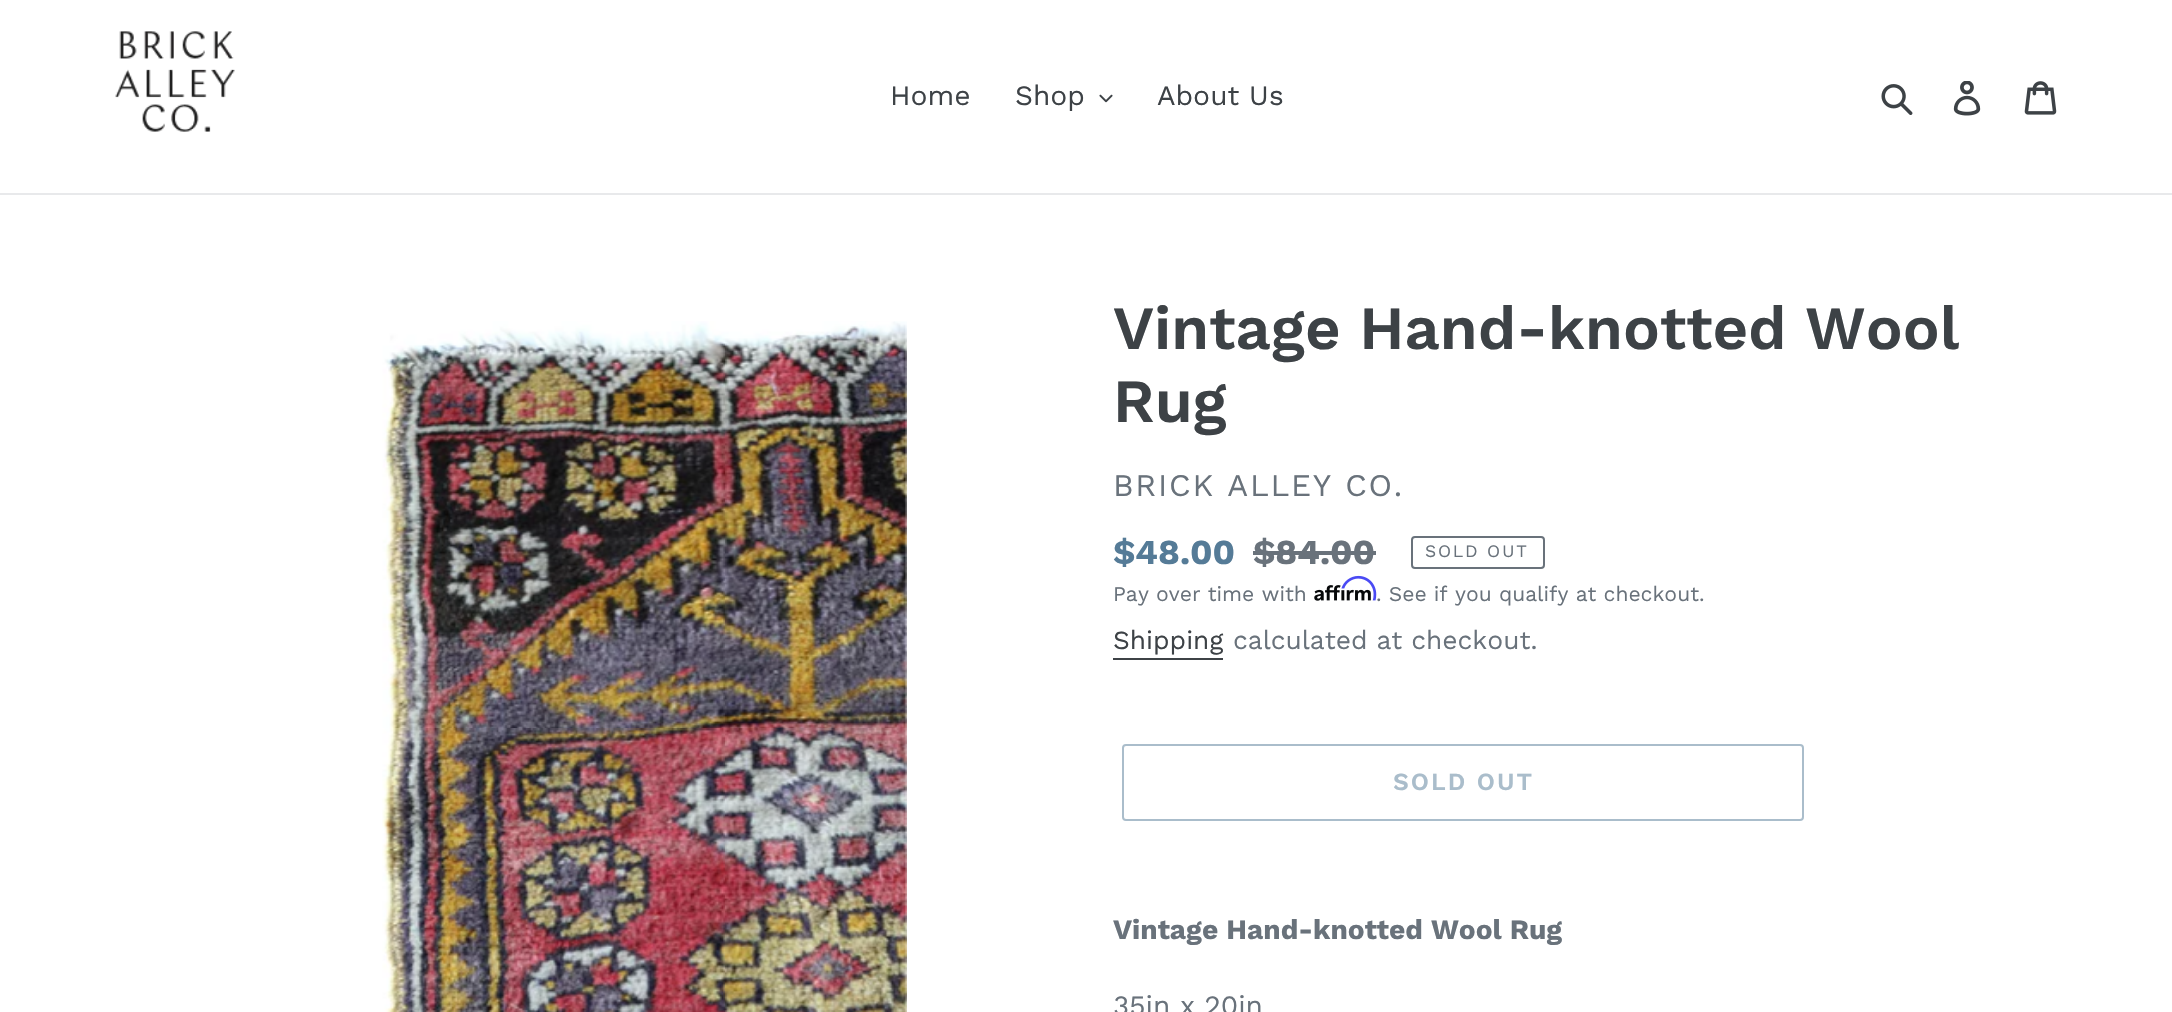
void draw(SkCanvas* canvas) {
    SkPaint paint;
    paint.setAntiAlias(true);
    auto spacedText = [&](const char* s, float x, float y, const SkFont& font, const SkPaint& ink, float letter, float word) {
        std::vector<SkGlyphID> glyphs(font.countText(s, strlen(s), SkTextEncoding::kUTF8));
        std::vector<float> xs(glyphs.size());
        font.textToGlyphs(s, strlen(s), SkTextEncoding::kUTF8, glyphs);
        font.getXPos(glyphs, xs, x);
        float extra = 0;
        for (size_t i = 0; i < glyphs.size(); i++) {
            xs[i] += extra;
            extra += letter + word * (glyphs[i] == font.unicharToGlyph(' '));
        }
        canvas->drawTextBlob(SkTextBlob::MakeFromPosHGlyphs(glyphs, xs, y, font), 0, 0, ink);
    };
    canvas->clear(0xFFFFFFFF);
    paint.setColor(0xFFE8E9EB);
    canvas->drawRect(SkRect::MakeXYWH(0, 193, 2172, 2), paint);
    canvas->drawImageRect(SkImages::DeferredFromEncodedData(SkData::MakeFromFileName("img1.png")), SkRect::MakeXYWH(115, 31, 120, 101), SkSamplingOptions());
    SkFont font1(fontMgr->matchFamilyStyle("Work Sans", SkFontStyle::Normal()), 28);
    font1.setSubpixel(true);
    paint.setColor(0xFF3D4246);
    canvas->drawString("Home", 890, 105, font1, paint);
    canvas->drawString("Shop", 1015, 105, font1, paint);
    canvas->drawImageRect(SkImages::DeferredFromEncodedData(SkData::MakeFromFileName("img2.png")), SkRect::MakeXYWH(1099, 94, 14, 9), SkSamplingOptions());
    canvas->drawString("About Us", 1157, 105, font1, paint);
    canvas->drawImageRect(SkImages::DeferredFromEncodedData(SkData::MakeFromFileName("img3.png")), SkRect::MakeXYWH(1881, 84, 32, 31), SkSamplingOptions());
    canvas->drawImageRect(SkImages::DeferredFromEncodedData(SkData::MakeFromFileName("img4.png")), SkRect::MakeXYWH(1953, 81, 28, 35), SkSamplingOptions());
    canvas->drawImageRect(SkImages::DeferredFromEncodedData(SkData::MakeFromFileName("img5.png")), SkRect::MakeXYWH(2024, 81, 33, 34), SkSamplingOptions());
    canvas->drawImageRect(SkImages::DeferredFromEncodedData(SkData::MakeFromFileName("img6.png")), SkRect::MakeXYWH(382, 321, 525, 691), SkSamplingOptions());
    SkFont font2(fontMgr->matchFamilyStyle("Work Sans", SkFontStyle(600, SkFontStyle::kNormal_Width, SkFontStyle::kUpright_Slant)), 61.25f);
    font2.setSubpixel(true);
    canvas->drawString("Vintage Hand-knotted Wool", 1113, 349, font2, paint);
    canvas->drawString("Rug", 1113, 422, font2, paint);
    SkFont font3(fontMgr->matchFamilyStyle("Work Sans", SkFontStyle::Normal()), 31.5f);
    font3.setSubpixel(true);
    paint.setColor(0xFF69727B);
    spacedText("BRICK ALLEY CO.", 1113, 496, font3, paint, 1.75f, 0);
    SkFont font4(fontMgr->matchFamilyStyle("Work Sans", SkFontStyle::Bold()), 35);
    font4.setSubpixel(true);
    paint.setColor(0xFF557B97);
    canvas->drawString("$48.00", 1113, 564, font4, paint);
    paint.setColor(0xFF69727B);
    canvas->drawString("$84.00", 1253, 564, font4, paint);
    canvas->drawRect(SkRect::MakeXYWH(1253, 551, 123, 4), paint);
    paint.setStyle(SkPaint::kStroke_Style);
    paint.setStrokeWidth(2);
    canvas->drawRoundRect(SkRect::MakeXYWH(1412, 537, 132, 31), 3, 3, paint);
    SkFont font5(fontMgr->matchFamilyStyle("Work Sans", SkFontStyle::Normal()), 17.5f);
    font5.setSubpixel(true);
    paint.setStyle(SkPaint::kFill_Style);
    spacedText("SOLD OUT", 1425, 557, font5, paint, 1.75f, 0);
    SkFont font6(fontMgr->matchFamilyStyle("Work Sans", SkFontStyle::Normal()), 21);
    font6.setSubpixel(true);
    canvas->drawString("Pay over time with", 1113, 601, font6, paint);
    canvas->drawImageRect(SkImages::DeferredFromEncodedData(SkData::MakeFromFileName("img8.png")), SkRect::MakeXYWH(1314, 585, 57, 16), SkSamplingOptions());
    canvas->drawImageRect(SkImages::DeferredFromEncodedData(SkData::MakeFromFileName("img7.png")), SkRect::MakeXYWH(1341, 575, 36, 26), SkSamplingOptions());
    canvas->drawString(". See if you qualify at checkout.", 1376, 601, font6, paint);
    SkFont font7(fontMgr->matchFamilyStyle("Work Sans", SkFontStyle::Normal()), 26.25f);
    font7.setSubpixel(true);
    paint.setColor(0xFF3D4246);
    canvas->drawString("Shipping", 1113, 649, font7, paint);
    canvas->drawRect(SkRect::MakeXYWH(1113, 658, 110, 2), paint);
    paint.setColor(0xFF69727B);
    canvas->drawString("calculated at checkout.", 1233, 649, font7, paint);
    paint.setStyle(SkPaint::kStroke_Style);
    paint.setColor(0xFFAABDCB);
    canvas->drawRoundRect(SkRect::MakeXYWH(1123, 745, 680, 75), 3, 3, paint);
    SkFont font8(fontMgr->matchFamilyStyle("Work Sans", SkFontStyle(600, SkFontStyle::kNormal_Width, SkFontStyle::kUpright_Slant)), 24.5f);
    font8.setSubpixel(true);
    paint.setStyle(SkPaint::kFill_Style);
    spacedText("SOLD OUT", 1393, 790, font8, paint, 2, 0);
    SkFont font9(fontMgr->matchFamilyStyle("Work Sans", SkFontStyle::Bold()), 28);
    font9.setSubpixel(true);
    paint.setColor(0xFF69727B);
    canvas->drawString("Vintage Hand-knotted Wool Rug", 1113, 939, font9, paint);
    canvas->drawString("35in x 20in", 1113, 1015, font1, paint);
}
